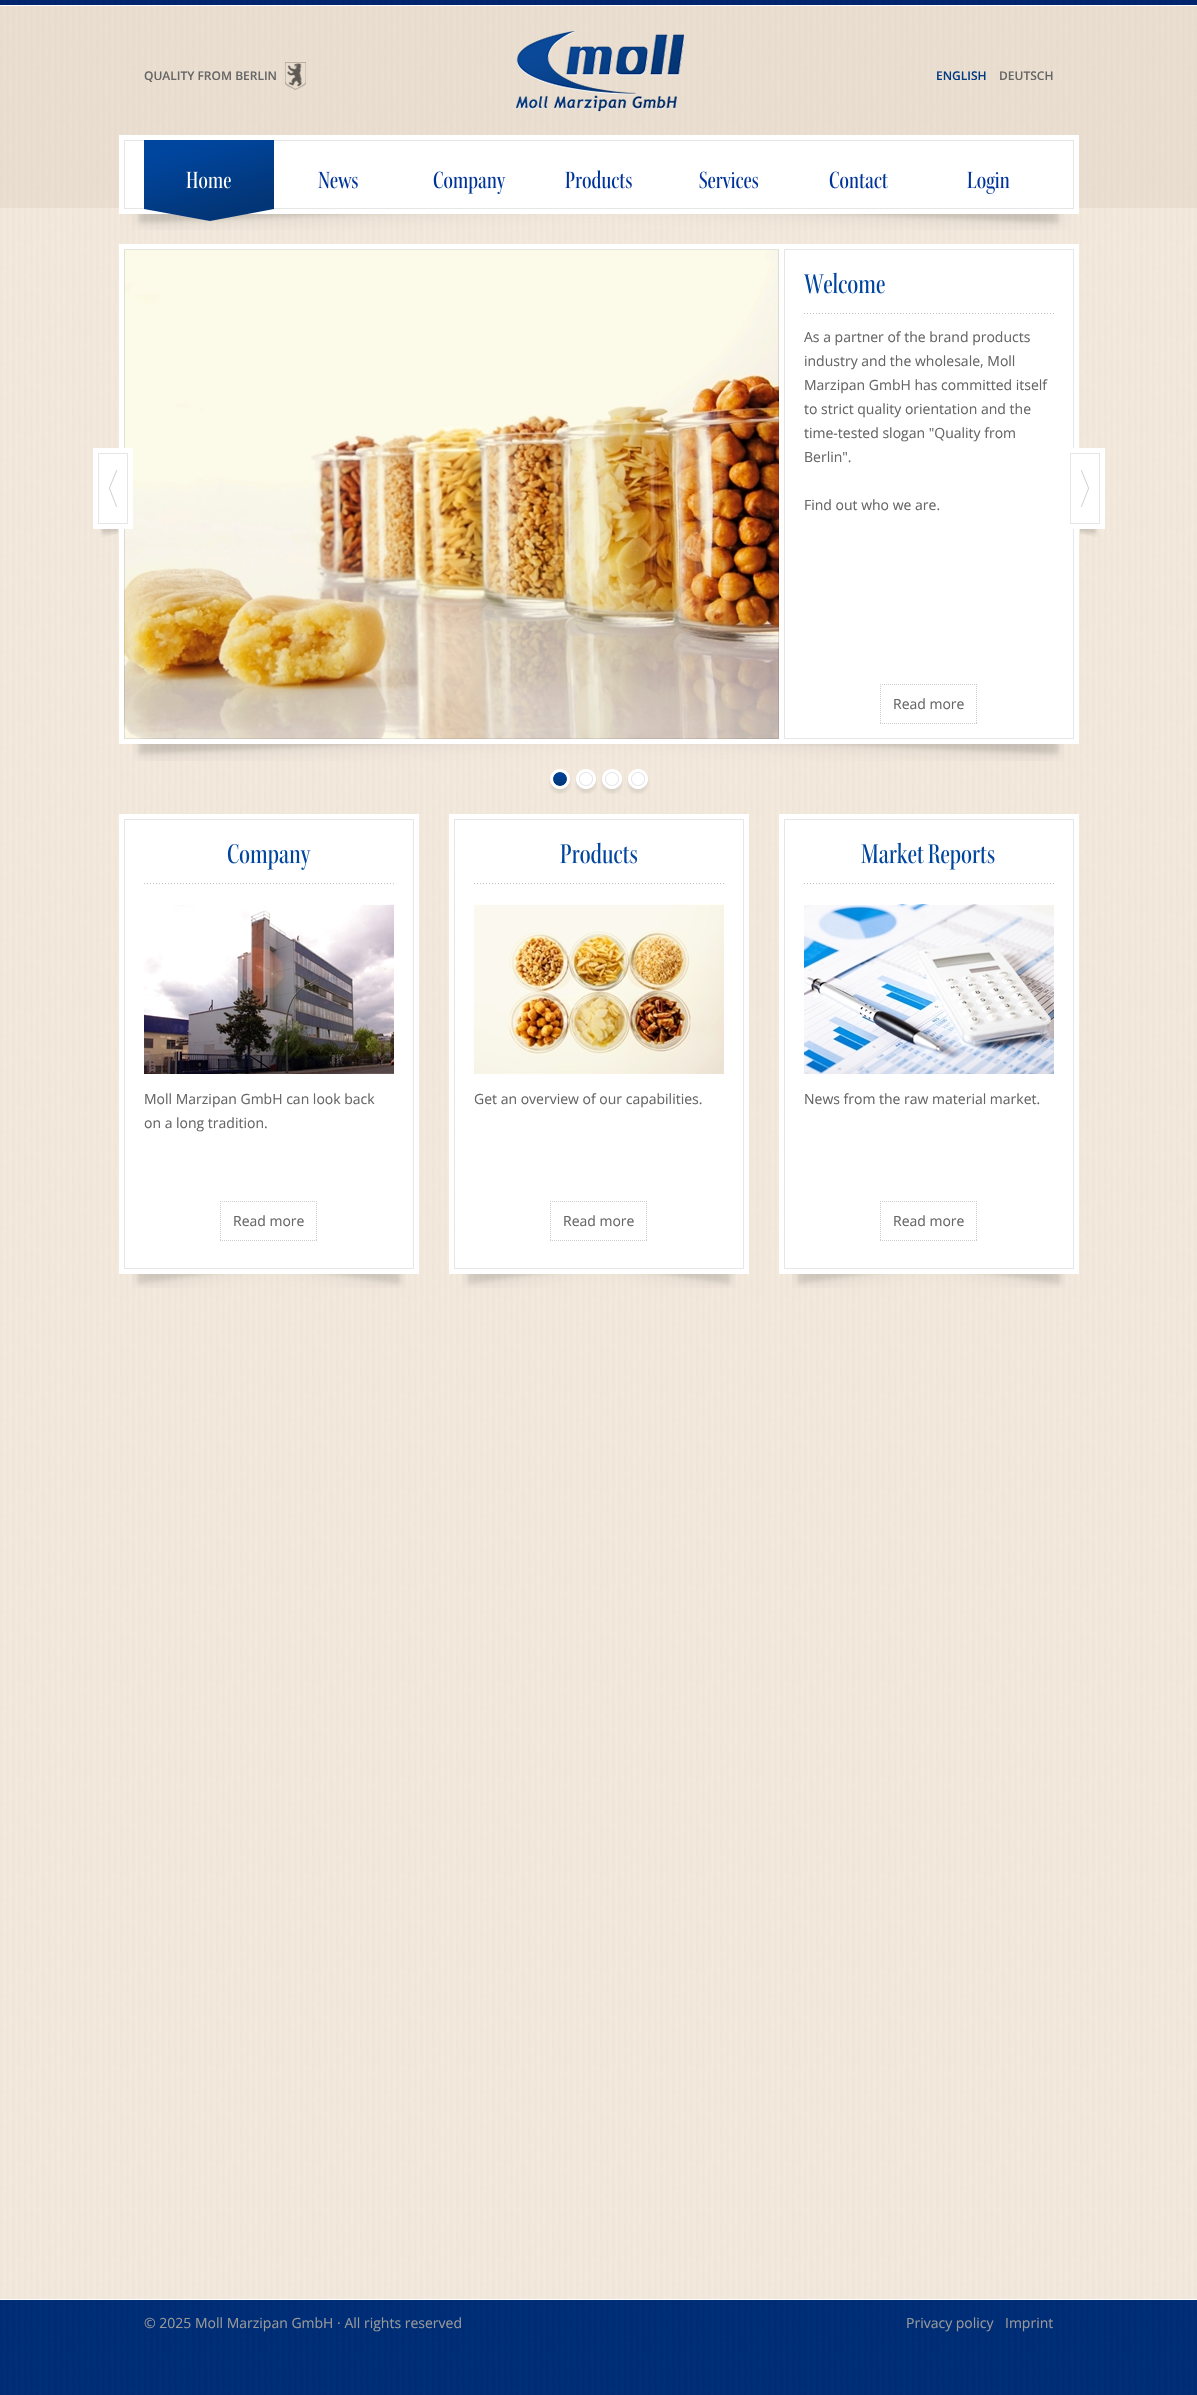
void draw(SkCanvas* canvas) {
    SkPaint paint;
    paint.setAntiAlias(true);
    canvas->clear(0xFFFFFFFF);
    canvas->drawImageRect(SkImages::DeferredFromEncodedData(SkData::MakeFromFileName("img1.png")), SkRect::MakeXYWH(0, 208, 1197, 2091), SkSamplingOptions());
    canvas->drawImageRect(SkImages::DeferredFromEncodedData(SkData::MakeFromFileName("img2.png")), SkRect::MakeXYWH(0, 0, 1197, 208), SkSamplingOptions());
    SkFont font1(fontMgr->matchFamilyStyle("Open Sans", SkFontStyle(600, SkFontStyle::kNormal_Width, SkFontStyle::kUpright_Slant)), 12);
    font1.setSubpixel(true);
    paint.setColor(0xFF666666);
    canvas->drawString("QUALITY FROM BERLIN", 144, 80, font1, paint);
    canvas->drawImageRect(SkImages::DeferredFromEncodedData(SkData::MakeFromFileName("img3.png")), SkRect::MakeXYWH(285, 62, 21, 28), SkSamplingOptions());
    canvas->drawImageRect(SkImages::DeferredFromEncodedData(SkData::MakeFromFileName("img4.png")), SkRect::MakeXYWH(516, 31, 168, 81), SkSamplingOptions());
    paint.setColor(0xFF023B84);
    canvas->drawString("ENGLISH", 936, 80, font1, paint);
    paint.setColor(0xFF666666);
    canvas->drawString("DEUTSCH", 999, 80, font1, paint);
    canvas->drawImageRect(SkImages::DeferredFromEncodedData(SkData::MakeFromFileName("img5.png")), SkRect::MakeXYWH(119, 135, 960, 95), SkSamplingOptions());
    canvas->drawImageRect(SkImages::DeferredFromEncodedData(SkData::MakeFromFileName("img6.png")), SkRect::MakeXYWH(144, 140, 130, 81), SkSamplingOptions());
    canvas->drawImageRect(SkImages::DeferredFromEncodedData(SkData::MakeFromFileName("img7.png")), SkRect::MakeXYWH(186, 171, 45, 18), SkSamplingOptions());
    canvas->drawImageRect(SkImages::DeferredFromEncodedData(SkData::MakeFromFileName("img8.png")), SkRect::MakeXYWH(318, 171, 40, 18), SkSamplingOptions());
    canvas->drawImageRect(SkImages::DeferredFromEncodedData(SkData::MakeFromFileName("img9.png")), SkRect::MakeXYWH(433, 171, 73, 23), SkSamplingOptions());
    canvas->drawImageRect(SkImages::DeferredFromEncodedData(SkData::MakeFromFileName("img10.png")), SkRect::MakeXYWH(565, 170, 67, 19), SkSamplingOptions());
    canvas->drawImageRect(SkImages::DeferredFromEncodedData(SkData::MakeFromFileName("img11.png")), SkRect::MakeXYWH(699, 171, 60, 18), SkSamplingOptions());
    canvas->drawImageRect(SkImages::DeferredFromEncodedData(SkData::MakeFromFileName("img12.png")), SkRect::MakeXYWH(829, 171, 59, 18), SkSamplingOptions());
    canvas->drawImageRect(SkImages::DeferredFromEncodedData(SkData::MakeFromFileName("img13.png")), SkRect::MakeXYWH(967, 171, 43, 23), SkSamplingOptions());
    canvas->drawImageRect(SkImages::DeferredFromEncodedData(SkData::MakeFromFileName("img14.png")), SkRect::MakeXYWH(133, 744, 931, 17), SkSamplingOptions());
    paint.setColor(0xFFFFFFFF);
    canvas->drawRect(SkRect::MakeXYWH(119, 244, 960, 500), paint);
    canvas->drawImageRect(SkImages::DeferredFromEncodedData(SkData::MakeFromFileName("img15.png")), SkRect::MakeXYWH(124, 249, 655, 490), SkSamplingOptions());
    paint.setStyle(SkPaint::kStroke_Style);
    paint.setStrokeWidth(1);
    paint.setColor(0x1A000000);
    canvas->drawRect(SkRect::MakeXYWH(124.5f, 249.5f, 654, 489), paint);
    paint.setColor(0xFFE6E6E6);
    canvas->drawRect(SkRect::MakeXYWH(784.5f, 249.5f, 289, 489), paint);
    canvas->drawImageRect(SkImages::DeferredFromEncodedData(SkData::MakeFromFileName("img16.png")), SkRect::MakeXYWH(804, 313, 250, 1), SkSamplingOptions());
    canvas->drawImageRect(SkImages::DeferredFromEncodedData(SkData::MakeFromFileName("img17.png")), SkRect::MakeXYWH(804, 272, 81, 22), SkSamplingOptions());
    SkFont font2(fontMgr->matchFamilyStyle("Open Sans", SkFontStyle::Normal()), 14);
    font2.setSubpixel(true);
    paint.setStyle(SkPaint::kFill_Style);
    paint.setColor(0xFF666666);
    canvas->drawString("As a partner of the brand products", 804, 342, font2, paint);
    canvas->drawString("industry and the wholesale, Moll", 804, 366, font2, paint);
    canvas->drawString("Marzipan GmbH has committed itself", 804, 390, font2, paint);
    canvas->drawString("to strict quality orientation and the", 804, 414, font2, paint);
    canvas->drawString("time-tested slogan \"Quality from", 804, 438, font2, paint);
    canvas->drawString("Berlin\".", 804, 462, font2, paint);
    canvas->drawString("Find out who we are.", 804, 510, font2, paint);
    paint.setStyle(SkPaint::kStroke_Style);
    paint.setColor(0xFFCDCDCD);
    paint.setPathEffect(SkDashPathEffect::Make({{1, 1}}, 0));
    canvas->drawPath(SkPathBuilder().moveTo(880, 684.5f).lineTo(977, 684.5f).detach(), paint);
    paint.setPathEffect(nullptr);
    paint.setPathEffect(SkDashPathEffect::Make({{1, 1}}, 0));
    canvas->drawPath(SkPathBuilder().moveTo(976.5f, 684).lineTo(976.5f, 724).detach(), paint);
    paint.setPathEffect(nullptr);
    paint.setPathEffect(SkDashPathEffect::Make({{1, 1}}, 0));
    canvas->drawPath(SkPathBuilder().moveTo(880, 723.5f).lineTo(977, 723.5f).detach(), paint);
    paint.setPathEffect(nullptr);
    paint.setPathEffect(SkDashPathEffect::Make({{1, 1}}, 0));
    canvas->drawPath(SkPathBuilder().moveTo(880.5f, 684).lineTo(880.5f, 724).detach(), paint);
    paint.setPathEffect(nullptr);
    paint.setStyle(SkPaint::kFill_Style);
    paint.setColor(0xFF666666);
    canvas->drawString("Read more", 893, 709, font2, paint);
    canvas->drawImageRect(SkImages::DeferredFromEncodedData(SkData::MakeFromFileName("img18.png")), SkRect::MakeXYWH(93, 448, 40, 89), SkSamplingOptions());
    canvas->drawImageRect(SkImages::DeferredFromEncodedData(SkData::MakeFromFileName("img19.png")), SkRect::MakeXYWH(1070, 448, 35, 89), SkSamplingOptions());
    canvas->drawImageRect(SkImages::DeferredFromEncodedData(SkData::MakeFromFileName("img20.png")), SkRect::MakeXYWH(549, 769, 22, 25), SkSamplingOptions());
    canvas->drawImageRect(SkImages::DeferredFromEncodedData(SkData::MakeFromFileName("img21.png")), SkRect::MakeXYWH(575, 769, 22, 25), SkSamplingOptions());
    canvas->drawImageRect(SkImages::DeferredFromEncodedData(SkData::MakeFromFileName("img22.png")), SkRect::MakeXYWH(601, 769, 22, 25), SkSamplingOptions());
    canvas->drawImageRect(SkImages::DeferredFromEncodedData(SkData::MakeFromFileName("img23.png")), SkRect::MakeXYWH(627, 769, 22, 25), SkSamplingOptions());
    canvas->drawImageRect(SkImages::DeferredFromEncodedData(SkData::MakeFromFileName("img24.png")), SkRect::MakeXYWH(132, 1274, 274, 14), SkSamplingOptions());
    paint.setColor(0xFFFFFFFF);
    canvas->drawRect(SkRect::MakeXYWH(119, 814, 300, 460), paint);
    paint.setStyle(SkPaint::kStroke_Style);
    paint.setColor(0xFFE6E6E6);
    canvas->drawRect(SkRect::MakeXYWH(124.5f, 819.5f, 289, 449), paint);
    canvas->drawImageRect(SkImages::DeferredFromEncodedData(SkData::MakeFromFileName("img16.png")), SkRect::MakeXYWH(144, 883, 250, 1), SkSamplingOptions());
    canvas->drawImageRect(SkImages::DeferredFromEncodedData(SkData::MakeFromFileName("img25.png")), SkRect::MakeXYWH(227, 844, 84, 26), SkSamplingOptions());
    canvas->drawImageRect(SkImages::DeferredFromEncodedData(SkData::MakeFromFileName("img26.png")), SkRect::MakeXYWH(144, 904, 250, 170), SkSamplingOptions());
    paint.setStyle(SkPaint::kFill_Style);
    paint.setColor(0xFF666666);
    canvas->drawString("Moll Marzipan GmbH can look back", 144, 1104, font2, paint);
    canvas->drawString("on a long tradition.", 144, 1128, font2, paint);
    paint.setStyle(SkPaint::kStroke_Style);
    paint.setColor(0xFFCDCDCD);
    paint.setPathEffect(SkDashPathEffect::Make({{1, 1}}, 0));
    canvas->drawPath(SkPathBuilder().moveTo(220, 1201.5f).lineTo(317, 1201.5f).detach(), paint);
    paint.setPathEffect(nullptr);
    paint.setPathEffect(SkDashPathEffect::Make({{1, 1}}, 0));
    canvas->drawPath(SkPathBuilder().moveTo(316.5f, 1201).lineTo(316.5f, 1241).detach(), paint);
    paint.setPathEffect(nullptr);
    paint.setPathEffect(SkDashPathEffect::Make({{1, 1}}, 0));
    canvas->drawPath(SkPathBuilder().moveTo(220, 1240.5f).lineTo(317, 1240.5f).detach(), paint);
    paint.setPathEffect(nullptr);
    paint.setPathEffect(SkDashPathEffect::Make({{1, 1}}, 0));
    canvas->drawPath(SkPathBuilder().moveTo(220.5f, 1201).lineTo(220.5f, 1241).detach(), paint);
    paint.setPathEffect(nullptr);
    paint.setStyle(SkPaint::kFill_Style);
    paint.setColor(0xFF666666);
    canvas->drawString("Read more", 233, 1226, font2, paint);
    canvas->drawImageRect(SkImages::DeferredFromEncodedData(SkData::MakeFromFileName("img27.png")), SkRect::MakeXYWH(462, 1274, 274, 14), SkSamplingOptions());
    paint.setColor(0xFFFFFFFF);
    canvas->drawRect(SkRect::MakeXYWH(449, 814, 300, 460), paint);
    paint.setStyle(SkPaint::kStroke_Style);
    paint.setColor(0xFFE6E6E6);
    canvas->drawRect(SkRect::MakeXYWH(454.5f, 819.5f, 289, 449), paint);
    canvas->drawImageRect(SkImages::DeferredFromEncodedData(SkData::MakeFromFileName("img16.png")), SkRect::MakeXYWH(474, 883, 250, 1), SkSamplingOptions());
    canvas->drawImageRect(SkImages::DeferredFromEncodedData(SkData::MakeFromFileName("img28.png")), SkRect::MakeXYWH(560, 842, 78, 22), SkSamplingOptions());
    canvas->drawImageRect(SkImages::DeferredFromEncodedData(SkData::MakeFromFileName("img29.png")), SkRect::MakeXYWH(474, 904, 250, 170), SkSamplingOptions());
    paint.setStyle(SkPaint::kFill_Style);
    paint.setColor(0xFF666666);
    canvas->drawString("Get an overview of our capabilities.", 474, 1104, font2, paint);
    paint.setStyle(SkPaint::kStroke_Style);
    paint.setColor(0xFFCDCDCD);
    paint.setPathEffect(SkDashPathEffect::Make({{1, 1}}, 0));
    canvas->drawPath(SkPathBuilder().moveTo(550, 1201.5f).lineTo(647, 1201.5f).detach(), paint);
    paint.setPathEffect(nullptr);
    paint.setPathEffect(SkDashPathEffect::Make({{1, 1}}, 0));
    canvas->drawPath(SkPathBuilder().moveTo(646.5f, 1201).lineTo(646.5f, 1241).detach(), paint);
    paint.setPathEffect(nullptr);
    paint.setPathEffect(SkDashPathEffect::Make({{1, 1}}, 0));
    canvas->drawPath(SkPathBuilder().moveTo(550, 1240.5f).lineTo(647, 1240.5f).detach(), paint);
    paint.setPathEffect(nullptr);
    paint.setPathEffect(SkDashPathEffect::Make({{1, 1}}, 0));
    canvas->drawPath(SkPathBuilder().moveTo(550.5f, 1201).lineTo(550.5f, 1241).detach(), paint);
    paint.setPathEffect(nullptr);
    paint.setStyle(SkPaint::kFill_Style);
    paint.setColor(0xFF666666);
    canvas->drawString("Read more", 563, 1226, font2, paint);
    canvas->drawImageRect(SkImages::DeferredFromEncodedData(SkData::MakeFromFileName("img30.png")), SkRect::MakeXYWH(792, 1274, 274, 14), SkSamplingOptions());
    paint.setColor(0xFFFFFFFF);
    canvas->drawRect(SkRect::MakeXYWH(779, 814, 300, 460), paint);
    paint.setStyle(SkPaint::kStroke_Style);
    paint.setColor(0xFFE6E6E6);
    canvas->drawRect(SkRect::MakeXYWH(784.5f, 819.5f, 289, 449), paint);
    canvas->drawImageRect(SkImages::DeferredFromEncodedData(SkData::MakeFromFileName("img16.png")), SkRect::MakeXYWH(804, 883, 250, 1), SkSamplingOptions());
    canvas->drawImageRect(SkImages::DeferredFromEncodedData(SkData::MakeFromFileName("img31.png")), SkRect::MakeXYWH(861, 842, 134, 28), SkSamplingOptions());
    canvas->drawImageRect(SkImages::DeferredFromEncodedData(SkData::MakeFromFileName("img32.png")), SkRect::MakeXYWH(804, 904, 250, 170), SkSamplingOptions());
    paint.setStyle(SkPaint::kFill_Style);
    paint.setColor(0xFF666666);
    canvas->drawString("News from the raw material market.", 804, 1104, font2, paint);
    paint.setStyle(SkPaint::kStroke_Style);
    paint.setColor(0xFFCDCDCD);
    paint.setPathEffect(SkDashPathEffect::Make({{1, 1}}, 0));
    canvas->drawPath(SkPathBuilder().moveTo(880, 1201.5f).lineTo(977, 1201.5f).detach(), paint);
    paint.setPathEffect(nullptr);
    paint.setPathEffect(SkDashPathEffect::Make({{1, 1}}, 0));
    canvas->drawPath(SkPathBuilder().moveTo(976.5f, 1201).lineTo(976.5f, 1241).detach(), paint);
    paint.setPathEffect(nullptr);
    paint.setPathEffect(SkDashPathEffect::Make({{1, 1}}, 0));
    canvas->drawPath(SkPathBuilder().moveTo(880, 1240.5f).lineTo(977, 1240.5f).detach(), paint);
    paint.setPathEffect(nullptr);
    paint.setPathEffect(SkDashPathEffect::Make({{1, 1}}, 0));
    canvas->drawPath(SkPathBuilder().moveTo(880.5f, 1201).lineTo(880.5f, 1241).detach(), paint);
    paint.setPathEffect(nullptr);
    paint.setStyle(SkPaint::kFill_Style);
    paint.setColor(0xFF666666);
    canvas->drawString("Read more", 893, 1226, font2, paint);
    canvas->drawImageRect(SkImages::DeferredFromEncodedData(SkData::MakeFromFileName("img33.png")), SkRect::MakeXYWH(0, 2299, 1197, 96), SkSamplingOptions());
    paint.setColor(0xFF999999);
    canvas->drawString("© 2025 Moll Marzipan GmbH · All rights reserved", 144, 2328, font2, paint);
    canvas->drawString("Privacy policy", 906, 2328, font2, paint);
    canvas->drawString("Imprint", 1005, 2328, font2, paint);
}
